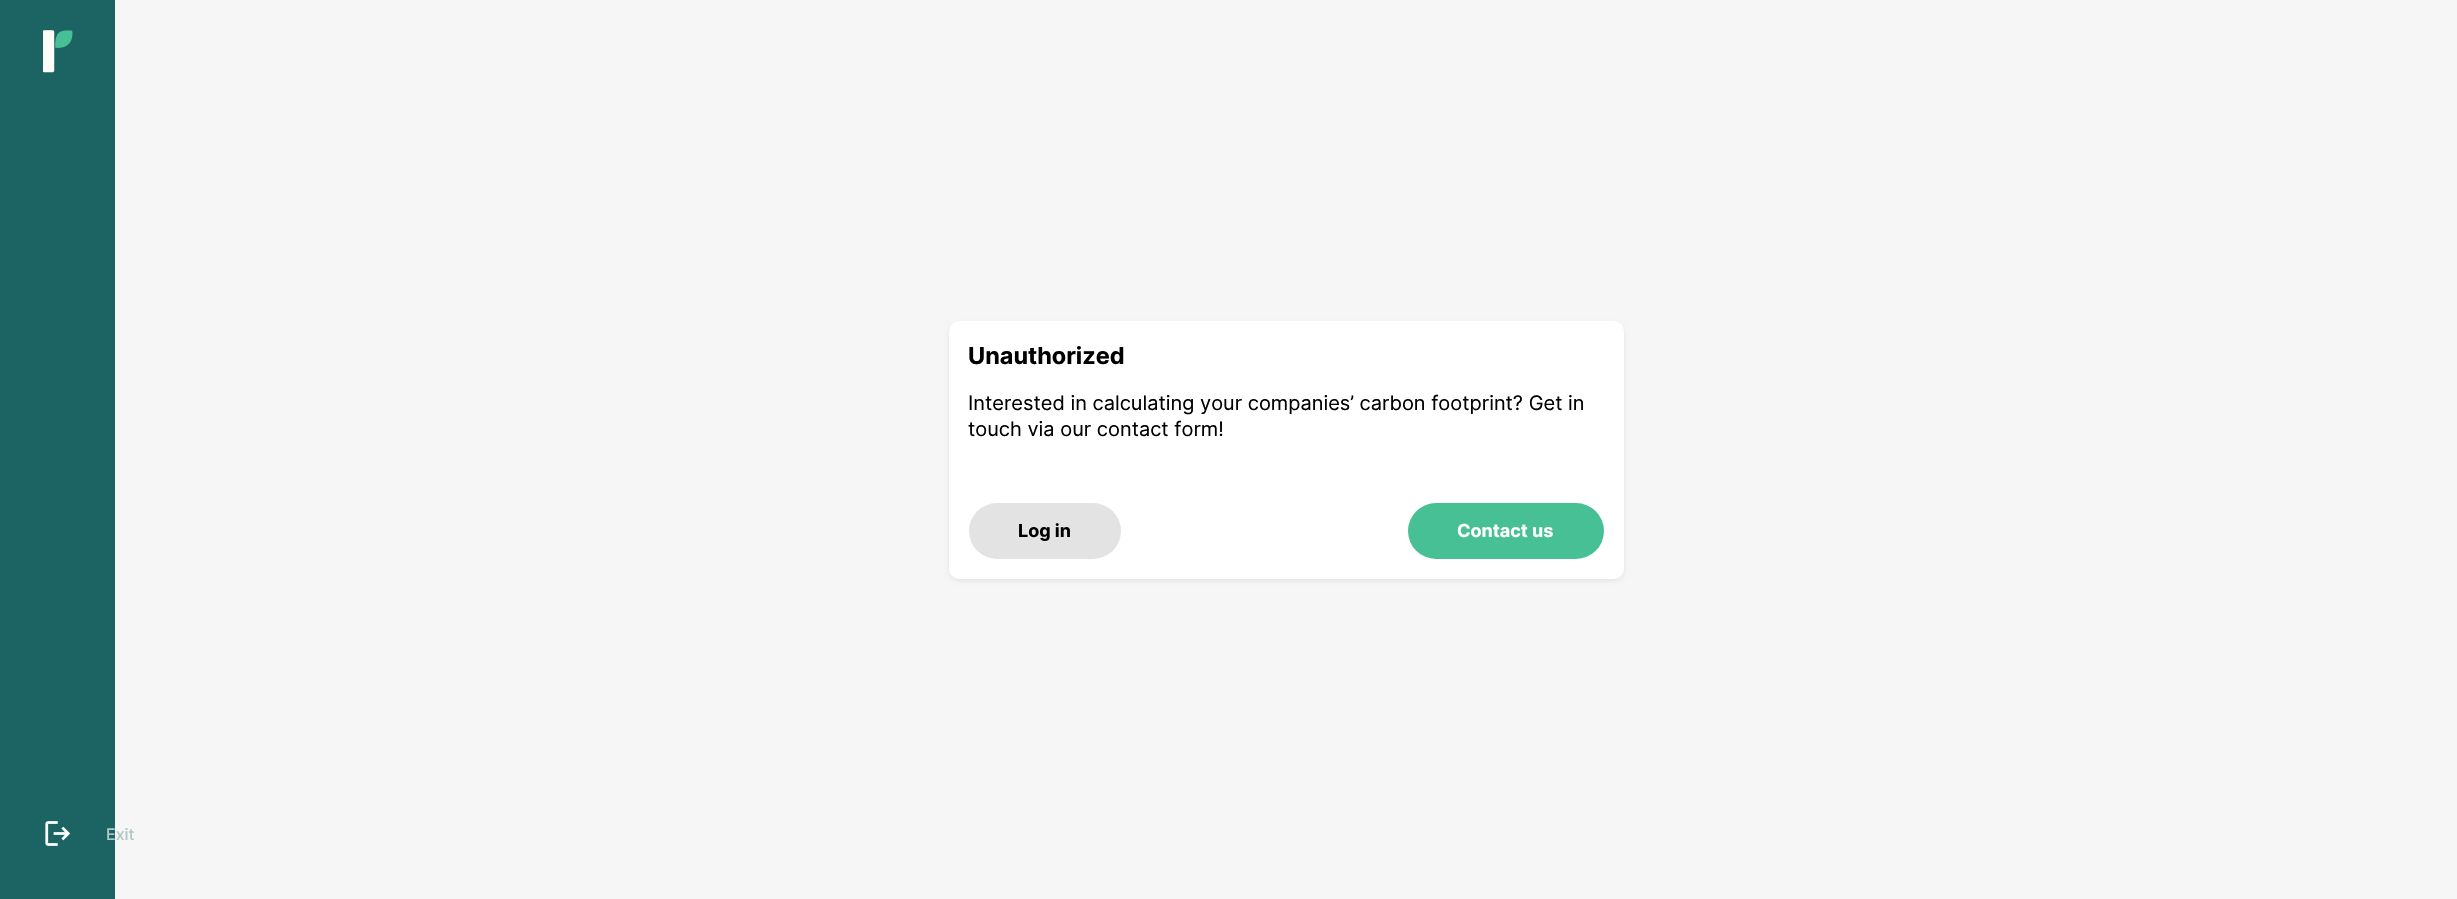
void draw(SkCanvas* canvas) {
    SkPaint paint;
    paint.setAntiAlias(true);
    canvas->clear(0xFFF6F6F6);
    paint.setColor(0x12000000);
    paint.setMaskFilter(SkMaskFilter::MakeBlur(kNormal_SkBlurStyle, 2.5f));
    canvas->drawRoundRect(SkRect::MakeXYWH(949, 324, 675, 257), 10, 10, paint);
    paint.setMaskFilter(nullptr);
    paint.setColor(0xFFFFFFFF);
    canvas->drawRoundRect(SkRect::MakeXYWH(949, 321, 675, 258), 10, 10, paint);
    SkFont font1(fontMgr->matchFamilyStyle("Inter", SkFontStyle::Bold()), 23.5f);
    font1.setSubpixel(true);
    paint.setColor(0xFF000000);
    canvas->drawString("Unauthorized", 968, 364, font1, paint);
    SkFont font2(fontMgr->matchFamilyStyle("Inter", SkFontStyle::Normal()), 20);
    font2.setSubpixel(true);
    canvas->drawString("Interested in calculating your companies’ carbon footprint? Get in", 968, 410, font2, paint);
    canvas->drawString("touch via our contact form!", 968, 436, font2, paint);
    paint.setColor(0xFFE3E3E3);
    canvas->drawRoundRect(SkRect::MakeXYWH(969, 503, 152, 56), 28, 28, paint);
    SkFont font3(fontMgr->matchFamilyStyle("Inter", SkFontStyle::Bold()), 18);
    font3.setSubpixel(true);
    paint.setColor(0xFF000000);
    canvas->drawString("Log in", 1018, 537, font3, paint);
    paint.setColor(0xFF47C095);
    canvas->drawRoundRect(SkRect::MakeXYWH(1408, 503, 196, 56), 28, 28, paint);
    paint.setColor(0xFFFFFFFF);
    canvas->drawString("Contact us", 1457, 537, font3, paint);
    paint.setColor(0xFF1C6363);
    canvas->drawRect(SkRect::MakeXYWH(0, 0, 115, 899), paint);
    canvas->drawImageRect(SkImages::DeferredFromEncodedData(SkData::MakeFromFileName("img1.png")), SkRect::MakeXYWH(43, 30, 30, 43), SkSamplingOptions());
    canvas->drawImageRect(SkImages::DeferredFromEncodedData(SkData::MakeFromFileName("img2.png")), SkRect::MakeXYWH(45, 821, 25, 25), SkSamplingOptions());
    SkFont font4(fontMgr->matchFamilyStyle("Inter", SkFontStyle(500, SkFontStyle::kNormal_Width, SkFontStyle::kUpright_Slant)), 16);
    font4.setSubpixel(true);
    paint.setColor(0xFFB2C8C8);
    canvas->drawString("Exit", 106, 840, font4, paint);
}
